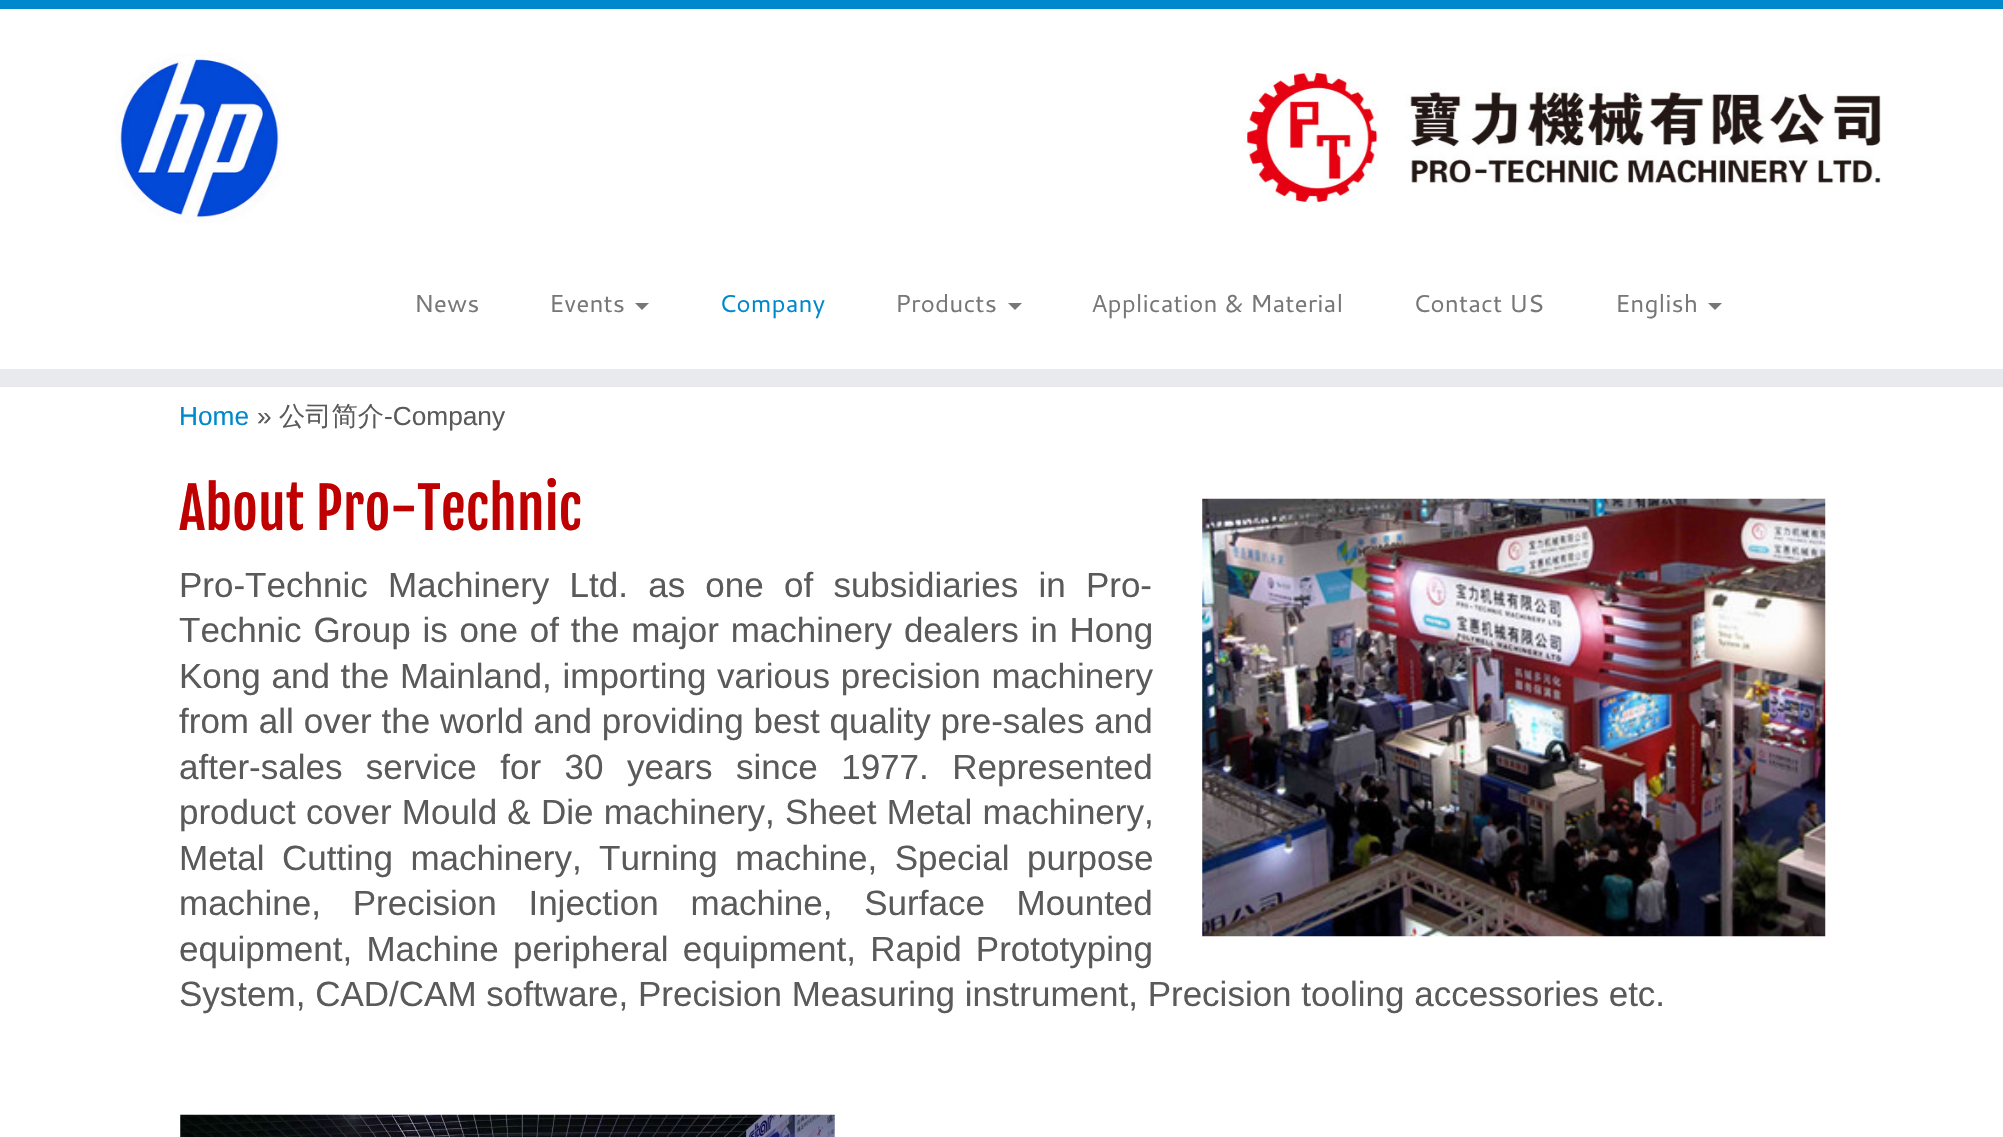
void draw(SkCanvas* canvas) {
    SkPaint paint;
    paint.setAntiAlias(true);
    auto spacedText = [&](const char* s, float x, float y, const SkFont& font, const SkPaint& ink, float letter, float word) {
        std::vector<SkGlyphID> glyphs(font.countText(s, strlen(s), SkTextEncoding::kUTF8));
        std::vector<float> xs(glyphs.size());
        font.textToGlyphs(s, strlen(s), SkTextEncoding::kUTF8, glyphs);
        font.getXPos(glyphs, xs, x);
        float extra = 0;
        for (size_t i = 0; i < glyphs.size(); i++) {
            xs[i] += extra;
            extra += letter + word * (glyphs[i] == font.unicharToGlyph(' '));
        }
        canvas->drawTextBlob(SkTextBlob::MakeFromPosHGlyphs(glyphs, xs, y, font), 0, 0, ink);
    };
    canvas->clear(0xFFFFFFFF);
    paint.setColor(0xFF0088CC);
    canvas->drawRect(SkRect::MakeXYWH(0, 0, 2003, 9), paint);
    paint.setColor(0xFFE9EAEE);
    canvas->drawRect(SkRect::MakeXYWH(0, 369, 2003, 18), paint);
    canvas->drawImageRect(SkImages::DeferredFromEncodedData(SkData::MakeFromFileName("img1.png")), SkRect::MakeXYWH(115, 53, 1766, 170), SkSamplingOptions());
    SkFont font1(fontMgr->matchFamilyStyle("Cantarell", SkFontStyle::Normal()), 24.5f);
    font1.setSubpixel(true);
    paint.setColor(0xFF777777);
    canvas->drawString("News", 414, 312, font1, paint);
    canvas->drawString("Events", 549, 312, font1, paint);
    canvas->drawPath(SkPathBuilder().moveTo(635, 303).lineTo(649, 303).lineTo(642, 310).close().detach(), paint);
    paint.setColor(0xFF0088CC);
    canvas->drawString("Company", 719, 312, font1, paint);
    paint.setColor(0xFF777777);
    canvas->drawString("Products", 895, 312, font1, paint);
    canvas->drawPath(SkPathBuilder().moveTo(1008, 303).lineTo(1022, 303).lineTo(1015, 310).close().detach(), paint);
    canvas->drawString("Application & Material", 1091, 312, font1, paint);
    canvas->drawString("Contact US", 1413, 312, font1, paint);
    canvas->drawString("English", 1615, 312, font1, paint);
    canvas->drawPath(SkPathBuilder().moveTo(1708, 303).lineTo(1722, 303).lineTo(1715, 310).close().detach(), paint);
    SkFont font2(fontMgr->matchFamilyStyle("Liberation Sans", SkFontStyle::Normal()), 26.25f);
    font2.setSubpixel(true);
    paint.setColor(0xFF0088CC);
    canvas->drawString("Home", 179, 425, font2, paint);
    paint.setColor(0xFF5A5A5A);
    canvas->drawString("»", 257, 425, font2, paint);
    SkFont font3(fontMgr->matchFamilyStyle("WenQuanYi Zen Hei", SkFontStyle(500, SkFontStyle::kNormal_Width, SkFontStyle::kUpright_Slant)), 26.25f);
    font3.setSubpixel(true);
    canvas->drawString("公司简介", 279, 425, font3, paint);
    canvas->drawString("-Company", 384, 425, font2, paint);
    SkFont font4(fontMgr->matchFamilyStyle("Fjalla One", SkFontStyle::Normal()), 56);
    font4.setSubpixel(true);
    paint.setColor(0xFFBF0000);
    canvas->drawString("About Pro-Technic", 179, 530, font4, paint);
    canvas->drawImageRect(SkImages::DeferredFromEncodedData(SkData::MakeFromFileName("img2.png")), SkRect::MakeXYWH(1202, 498, 624, 439), SkSamplingOptions());
    SkFont font5(fontMgr->matchFamilyStyle("Liberation Sans", SkFontStyle::Normal()), 35);
    font5.setSubpixel(true);
    paint.setColor(0xFF5A5A5A);
    spacedText("Pro-Technic Machinery Ltd. as one of subsidiaries in Pro-", 179, 597, font5, paint, 0, 10.5f);
    spacedText("Technic Group is one of the major machinery dealers in Hong", 179, 642, font5, paint, 0, 2.1f);
    spacedText("Kong and the Mainland, importing various precision machinery", 179, 688, font5, paint, 0, 1);
    spacedText("from all over the world and providing best quality pre-sales and", 179, 733, font5, paint, 0, 0.1f);
    spacedText("after-sales service for 30 years since 1977. Represented", 179, 779, font5, paint, 0, 13.75f);
    spacedText("product cover Mould & Die machinery, Sheet Metal machinery,", 179, 824, font5, paint, 0, 0.5f);
    spacedText("Metal Cutting machinery, Turning machine, Special purpose", 179, 870, font5, paint, 0, 7.75f);
    spacedText("machine, Precision Injection machine, Surface Mounted", 179, 915, font5, paint, 0, 22);
    spacedText("equipment, Machine peripheral equipment, Rapid Prototyping", 179, 961, font5, paint, 0, 4.5f);
    canvas->drawString("System, CAD/CAM software, Precision Measuring instrument, Precision tooling accessories etc.", 179, 1006, font5, paint);
    canvas->drawImageRect(SkImages::DeferredFromEncodedData(SkData::MakeFromFileName("img3.png")), SkRect::MakeXYWH(180, 1114, 655, 23), SkSamplingOptions());
}
